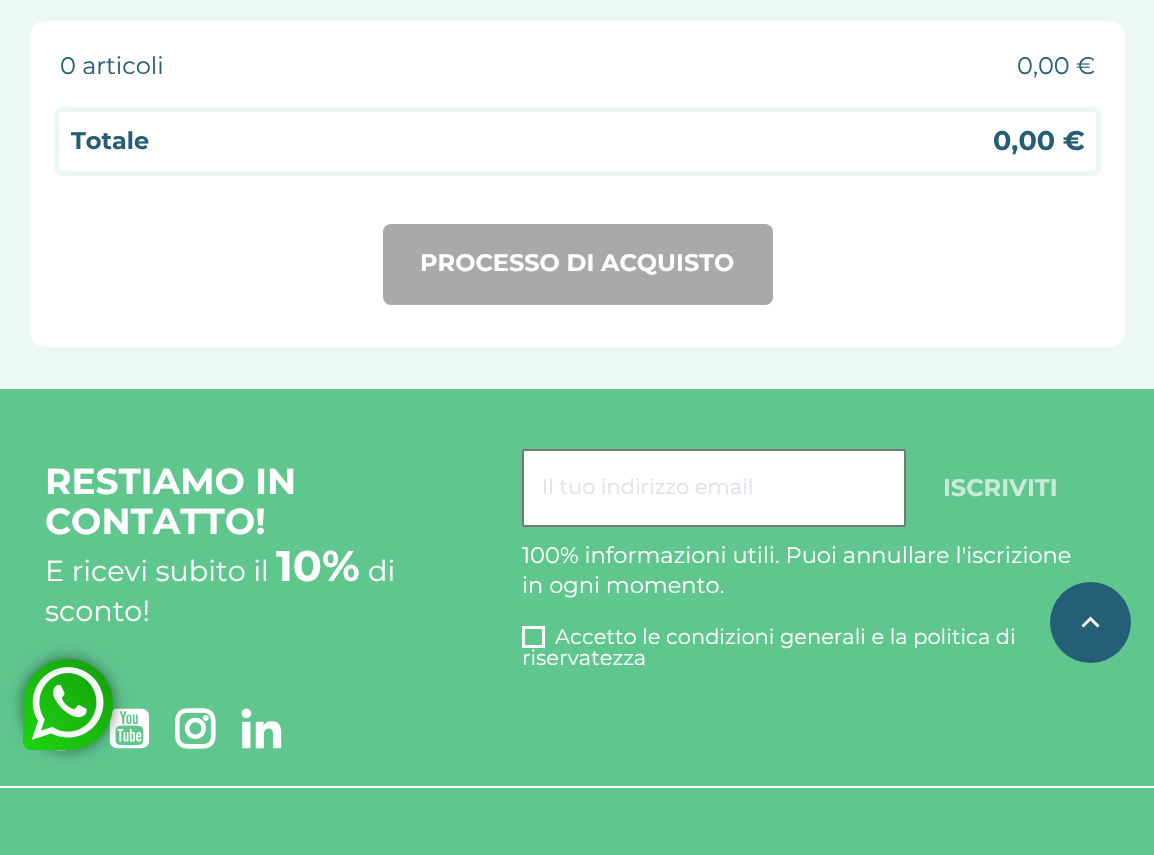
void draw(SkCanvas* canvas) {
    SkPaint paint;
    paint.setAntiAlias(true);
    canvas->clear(0xFFECF8F2);
    paint.setColor(0xFFFFFFFF);
    canvas->drawRoundRect(SkRect::MakeXYWH(30, 21, 1095, 326), 15, 15, paint);
    SkFont font1(fontMgr->matchFamilyStyle("Montserrat", SkFontStyle::Normal()), 24);
    font1.setSubpixel(true);
    paint.setColor(0xFF255F77);
    canvas->drawString("0 articoli", 60, 74, font1, paint);
    canvas->drawString("0,00 €", 1017, 74, font1, paint);
    paint.setStyle(SkPaint::kStroke_Style);
    paint.setStrokeWidth(5);
    paint.setColor(0xFFECF8F2);
    canvas->drawRoundRect(SkRect::MakeXYWH(56.5f, 109.5f, 1042, 64), 5.5f, 5.5f, paint);
    SkFont font2(fontMgr->matchFamilyStyle("Montserrat", SkFontStyle::Bold()), 24);
    font2.setSubpixel(true);
    paint.setStyle(SkPaint::kFill_Style);
    paint.setColor(0xFF255F77);
    canvas->drawString("Totale", 71, 149, font2, paint);
    SkFont font3(fontMgr->matchFamilyStyle("Montserrat", SkFontStyle::Bold()), 27);
    font3.setSubpixel(true);
    canvas->drawString("0,00 €", 993, 150, font3, paint);
    paint.setColor(0xFFA9A9A9);
    canvas->drawRoundRect(SkRect::MakeXYWH(383, 224, 390, 81), 8, 8, paint);
    paint.setColor(0xFFFFFFFF);
    canvas->drawString("PROCESSO DI ACQUISTO", 420, 271, font2, paint);
    paint.setColor(0xFF5FC68E);
    canvas->drawRect(SkRect::MakeXYWH(0, 389, 1154, 466), paint);
    paint.setColor(0xFFFFFFFF);
    canvas->drawRect(SkRect::MakeXYWH(0, 786, 1154, 2), paint);
    SkFont font4(fontMgr->matchFamilyStyle("Montserrat", SkFontStyle::Bold()), 36);
    font4.setSubpixel(true);
    canvas->drawString("RESTIAMO IN", 45, 494, font4, paint);
    canvas->drawString("CONTATTO!", 45, 534, font4, paint);
    SkFont font5(fontMgr->matchFamilyStyle("Montserrat", SkFontStyle::Normal()), 28.75f);
    font5.setSubpixel(true);
    canvas->drawString("E ricevi subito il", 45, 581, font5, paint);
    SkFont font6(fontMgr->matchFamilyStyle("Montserrat", SkFontStyle::Bold()), 43);
    font6.setSubpixel(true);
    canvas->drawString("10%", 276, 581, font6, paint);
    canvas->drawString("di", 368, 581, font5, paint);
    canvas->drawString("sconto!", 45, 621, font5, paint);
    canvas->drawRoundRect(SkRect::MakeXYWH(523, 450, 382, 76), 2, 2, paint);
    paint.setStyle(SkPaint::kStroke_Style);
    paint.setStrokeWidth(2);
    paint.setColor(0xFF767676);
    canvas->drawRoundRect(SkRect::MakeXYWH(523, 450, 382, 76), 2, 2, paint);
    SkFont font7(fontMgr->matchFamilyStyle("Montserrat", SkFontStyle::Normal()), 21);
    font7.setSubpixel(true);
    paint.setStyle(SkPaint::kFill_Style);
    paint.setColor(0xFFDCE2EA);
    canvas->drawString("Il tuo indirizzo email", 542, 494, font7, paint);
    paint.setColor(0xFFC7EBD7);
    canvas->drawString("ISCRIVITI", 943, 496, font2, paint);
    SkFont font8(fontMgr->matchFamilyStyle("Montserrat", SkFontStyle::Normal()), 22.5f);
    font8.setSubpixel(true);
    paint.setColor(0xFFFFFFFF);
    canvas->drawString("100% informazioni utili. Puoi annullare l'iscrizione", 522, 563, font8, paint);
    canvas->drawString("in ogni momento.", 522, 593, font8, paint);
    paint.setStyle(SkPaint::kStroke_Style);
    paint.setStrokeWidth(3);
    canvas->drawRect(SkRect::MakeXYWH(523.5f, 627.5f, 20, 19), paint);
    paint.setStyle(SkPaint::kFill_Style);
    canvas->drawString("Accetto le condizioni generali e la politica di", 555, 644, font7, paint);
    canvas->drawString("riservatezza", 522, 665, font7, paint);
    canvas->drawImageRect(SkImages::DeferredFromEncodedData(SkData::MakeFromFileName("img1.png")), SkRect::MakeXYWH(109, 708, 41, 41), SkSamplingOptions());
    canvas->drawImageRect(SkImages::DeferredFromEncodedData(SkData::MakeFromFileName("img2.png")), SkRect::MakeXYWH(175, 708, 41, 41), SkSamplingOptions());
    canvas->drawImageRect(SkImages::DeferredFromEncodedData(SkData::MakeFromFileName("img3.png")), SkRect::MakeXYWH(241, 708, 41, 41), SkSamplingOptions());
    canvas->drawImageRect(SkImages::DeferredFromEncodedData(SkData::MakeFromFileName("img4.png")), SkRect::MakeXYWH(57, 750, 10, 1), SkSamplingOptions());
    paint.setColor(0x80000000);
    paint.setMaskFilter(SkMaskFilter::MakeBlur(kNormal_SkBlurStyle, 7.5f));
    canvas->drawRoundRect(SkRect::MakeXYWH(23, 659, 90, 91), 45, 45, paint);
    paint.setMaskFilter(nullptr);
    {
        const SkColor colors[] = {0xFF159C0C, 0xFF1DD510};
        const float stops[] = {0, 1};
        const SkPoint ends[] = {{113, 659}, {22, 750}};
        paint.setShader(SkGradientShader::MakeLinear(ends, colors, stops, 2, SkTileMode::kClamp));
        paint.setAlpha(255);
    }
    canvas->drawPath(SkPathBuilder().moveTo(68, 659).cubicTo(93, 659, 113, 679, 113, 704).lineTo(113, 705).cubicTo(113, 730, 93, 750, 68, 750).lineTo(31, 750).cubicTo(26.5f, 750, 23, 746.5f, 23, 742).lineTo(23, 704).cubicTo(23, 679, 43, 659, 68, 659).close().detach(), paint);
    canvas->drawImageRect(SkImages::DeferredFromEncodedData(SkData::MakeFromFileName("img5.png")), SkRect::MakeXYWH(31, 667, 73, 73), SkSamplingOptions());
    paint.setShader(nullptr);
    paint.setColor(0xFF255F77);
    canvas->drawCircle(1090.5f, 622.5f, 40.5f, paint);
    paint.setColor(0xFFFFFFFF);
    canvas->drawPath(SkPathBuilder().moveTo(1083.5f, 627.5f).lineTo(1081.5f, 625.5f).lineTo(1090.5f, 616.5f).lineTo(1099.5f, 625.5f).lineTo(1097.5f, 627.5f).lineTo(1090.5f, 620.5f).close().detach(), paint);
}
